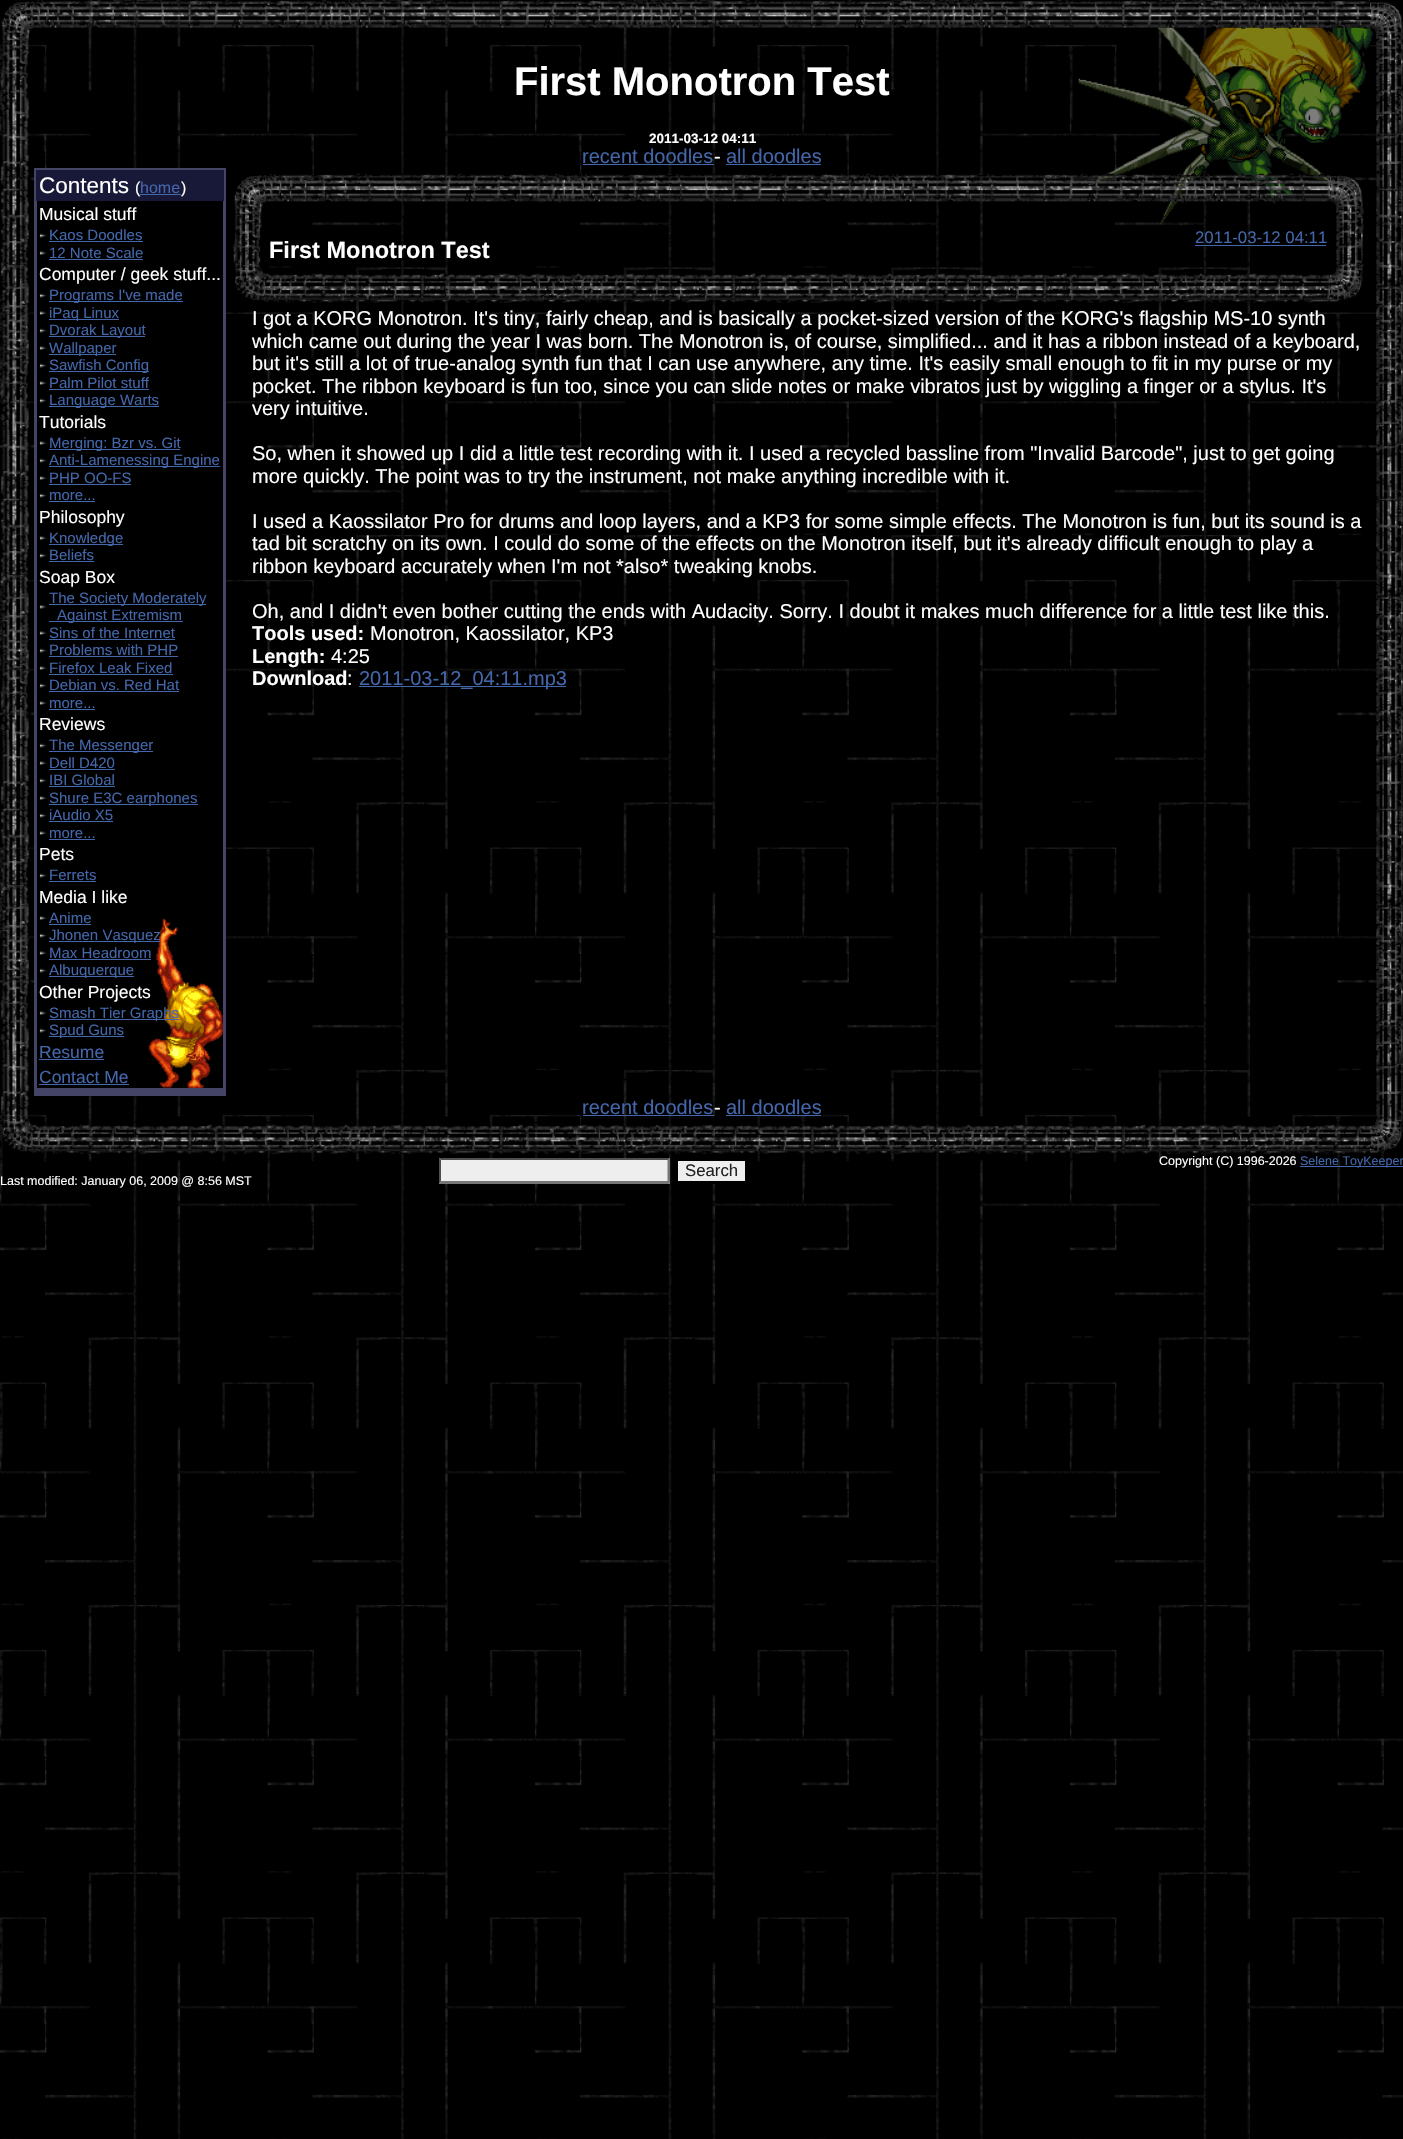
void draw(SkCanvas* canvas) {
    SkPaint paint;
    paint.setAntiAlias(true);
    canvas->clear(0xFFFFFFFF);
    canvas->drawImageRect(SkImages::DeferredFromEncodedData(SkData::MakeFromFileName("img1.png")), SkRect::MakeXYWH(0, 0, 1403, 2139), SkSamplingOptions());
    canvas->drawImageRect(SkImages::DeferredFromEncodedData(SkData::MakeFromFileName("img2.png")), SkRect::MakeXYWH(1078, 27, 295, 198), SkSamplingOptions());
    canvas->drawImageRect(SkImages::DeferredFromEncodedData(SkData::MakeFromFileName("img4.png")), SkRect::MakeXYWH(33, 0, 1337, 29), SkSamplingOptions());
    canvas->drawImageRect(SkImages::DeferredFromEncodedData(SkData::MakeFromFileName("img6.png")), SkRect::MakeXYWH(0, 33, 29, 1086), SkSamplingOptions());
    canvas->drawImageRect(SkImages::DeferredFromEncodedData(SkData::MakeFromFileName("img3.png")), SkRect::MakeXYWH(1, 1, 33, 33), SkSamplingOptions());
    canvas->drawImageRect(SkImages::DeferredFromEncodedData(SkData::MakeFromFileName("img19.png")), SkRect::MakeXYWH(1376, 33, 27, 1086), SkSamplingOptions());
    canvas->drawImageRect(SkImages::DeferredFromEncodedData(SkData::MakeFromFileName("img5.png")), SkRect::MakeXYWH(1370, 1, 33, 33), SkSamplingOptions());
    SkFont font1(fontMgr->matchFamilyStyle("Liberation Sans", SkFontStyle::Bold()), 40);
    font1.setSubpixel(true);
    paint.setColor(0xFFFFFFFF);
    canvas->drawString("First Monotron Test", 514, 95, font1, paint);
    SkFont font2(fontMgr->matchFamilyStyle("Liberation Sans", SkFontStyle::Bold()), 13.5f);
    font2.setSubpixel(true);
    canvas->drawString("2011-03-12 04:11", 649, 143, font2, paint);
    SkFont font3(fontMgr->matchFamilyStyle("Liberation Sans", SkFontStyle::Normal()), 20);
    font3.setSubpixel(true);
    paint.setColor(0xFF4466AA);
    canvas->drawString("recent doodles", 582, 163, font3, paint);
    canvas->drawRect(SkRect::MakeXYWH(583, 164, 131, 1), paint);
    paint.setColor(0xFFFFFFFF);
    canvas->drawString("-", 714, 163, font3, paint);
    paint.setColor(0xFF4466AA);
    canvas->drawString("all doodles", 726, 163, font3, paint);
    canvas->drawRect(SkRect::MakeXYWH(726, 164, 95, 1), paint);
    paint.setColor(0xFF000000);
    canvas->drawRect(SkRect::MakeXYWH(37, 201, 186, 887), paint);
    canvas->drawImageRect(SkImages::DeferredFromEncodedData(SkData::MakeFromFileName("img7.png")), SkRect::MakeXYWH(148, 918, 75, 170), SkSamplingOptions());
    paint.setStyle(SkPaint::kStroke_Style);
    paint.setStrokeWidth(3);
    paint.setColor(0xFF444466);
    canvas->drawRect(SkRect::MakeXYWH(35.5f, 169.5f, 189, 920), paint);
    paint.setStyle(SkPaint::kFill_Style);
    paint.setColor(0xFF181838);
    canvas->drawRect(SkRect::MakeXYWH(36, 170, 188, 31), paint);
    SkFont font4(fontMgr->matchFamilyStyle("Liberation Sans", SkFontStyle::Normal()), 22.5f);
    font4.setSubpixel(true);
    paint.setColor(0xFFFFFFFF);
    canvas->drawString("Contents", 39, 193, font4, paint);
    SkFont font5(fontMgr->matchFamilyStyle("Liberation Sans", SkFontStyle::Normal()), 16);
    font5.setSubpixel(true);
    canvas->drawString("(", 135, 193, font5, paint);
    paint.setColor(0xFF4466AA);
    canvas->drawRect(SkRect::MakeXYWH(140, 194, 41, 1), paint);
    canvas->drawString("home", 140, 193, font5, paint);
    paint.setColor(0xFFFFFFFF);
    canvas->drawString(")", 181, 193, font5, paint);
    SkFont font6(fontMgr->matchFamilyStyle("Liberation Sans", SkFontStyle::Normal()), 17.5f);
    font6.setSubpixel(true);
    canvas->drawString("Musical stuff", 39, 220, font6, paint);
    canvas->drawImageRect(SkImages::DeferredFromEncodedData(SkData::MakeFromFileName("img8.png")), SkRect::MakeXYWH(39, 233, 8, 5), SkSamplingOptions());
    SkFont font7(fontMgr->matchFamilyStyle("Liberation Sans", SkFontStyle::Normal()), 15);
    font7.setSubpixel(true);
    paint.setColor(0xFF4466AA);
    canvas->drawString("Kaos Doodles", 49, 240, font7, paint);
    canvas->drawRect(SkRect::MakeXYWH(49, 241, 94, 1), paint);
    canvas->drawImageRect(SkImages::DeferredFromEncodedData(SkData::MakeFromFileName("img9.png")), SkRect::MakeXYWH(39, 251, 8, 4), SkSamplingOptions());
    canvas->drawString("12 Note Scale", 49, 258, font7, paint);
    canvas->drawRect(SkRect::MakeXYWH(49, 259, 94, 1), paint);
    paint.setColor(0xFFFFFFFF);
    canvas->drawString("Computer / geek stuff...", 39, 280, font6, paint);
    canvas->drawImageRect(SkImages::DeferredFromEncodedData(SkData::MakeFromFileName("img8.png")), SkRect::MakeXYWH(39, 293, 8, 5), SkSamplingOptions());
    paint.setColor(0xFF4466AA);
    canvas->drawRect(SkRect::MakeXYWH(49, 301, 134, 1), paint);
    canvas->drawString("Programs I've made", 49, 300, font7, paint);
    canvas->drawImageRect(SkImages::DeferredFromEncodedData(SkData::MakeFromFileName("img9.png")), SkRect::MakeXYWH(39, 311, 8, 4), SkSamplingOptions());
    canvas->drawRect(SkRect::MakeXYWH(49, 319, 70, 1), paint);
    canvas->drawString("iPaq Linux", 49, 318, font7, paint);
    canvas->drawImageRect(SkImages::DeferredFromEncodedData(SkData::MakeFromFileName("img8.png")), SkRect::MakeXYWH(39, 328, 8, 5), SkSamplingOptions());
    canvas->drawRect(SkRect::MakeXYWH(49, 336, 96, 1), paint);
    canvas->drawString("Dvorak Layout", 49, 335, font7, paint);
    canvas->drawImageRect(SkImages::DeferredFromEncodedData(SkData::MakeFromFileName("img9.png")), SkRect::MakeXYWH(39, 346, 8, 4), SkSamplingOptions());
    canvas->drawRect(SkRect::MakeXYWH(49, 354, 67, 1), paint);
    canvas->drawString("Wallpaper", 49, 353, font7, paint);
    canvas->drawImageRect(SkImages::DeferredFromEncodedData(SkData::MakeFromFileName("img8.png")), SkRect::MakeXYWH(39, 363, 8, 5), SkSamplingOptions());
    canvas->drawRect(SkRect::MakeXYWH(49, 371, 100, 1), paint);
    canvas->drawString("Sawfish Config", 49, 370, font7, paint);
    canvas->drawImageRect(SkImages::DeferredFromEncodedData(SkData::MakeFromFileName("img9.png")), SkRect::MakeXYWH(39, 381, 8, 4), SkSamplingOptions());
    canvas->drawString("Palm Pilot stuff", 49, 388, font7, paint);
    canvas->drawRect(SkRect::MakeXYWH(49, 389, 100, 1), paint);
    canvas->drawImageRect(SkImages::DeferredFromEncodedData(SkData::MakeFromFileName("img8.png")), SkRect::MakeXYWH(39, 398, 8, 5), SkSamplingOptions());
    canvas->drawRect(SkRect::MakeXYWH(49, 406, 110, 1), paint);
    canvas->drawString("Language Warts", 49, 405, font7, paint);
    paint.setColor(0xFFFFFFFF);
    canvas->drawString("Tutorials", 39, 428, font6, paint);
    canvas->drawImageRect(SkImages::DeferredFromEncodedData(SkData::MakeFromFileName("img9.png")), SkRect::MakeXYWH(39, 441, 8, 4), SkSamplingOptions());
    paint.setColor(0xFF4466AA);
    canvas->drawRect(SkRect::MakeXYWH(49, 449, 131, 1), paint);
    canvas->drawString("Merging: Bzr vs. Git", 49, 448, font7, paint);
    canvas->drawImageRect(SkImages::DeferredFromEncodedData(SkData::MakeFromFileName("img8.png")), SkRect::MakeXYWH(39, 458, 8, 5), SkSamplingOptions());
    canvas->drawRect(SkRect::MakeXYWH(49, 466, 171, 1), paint);
    canvas->drawString("Anti-Lamenessing Engine", 49, 465, font7, paint);
    canvas->drawImageRect(SkImages::DeferredFromEncodedData(SkData::MakeFromFileName("img9.png")), SkRect::MakeXYWH(39, 476, 8, 4), SkSamplingOptions());
    canvas->drawString("PHP OO-FS", 49, 483, font7, paint);
    canvas->drawRect(SkRect::MakeXYWH(49, 484, 82, 1), paint);
    canvas->drawImageRect(SkImages::DeferredFromEncodedData(SkData::MakeFromFileName("img8.png")), SkRect::MakeXYWH(39, 493, 8, 5), SkSamplingOptions());
    canvas->drawString("more...", 49, 500, font7, paint);
    canvas->drawRect(SkRect::MakeXYWH(49, 501, 46, 1), paint);
    paint.setColor(0xFFFFFFFF);
    canvas->drawString("Philosophy", 39, 523, font6, paint);
    canvas->drawImageRect(SkImages::DeferredFromEncodedData(SkData::MakeFromFileName("img9.png")), SkRect::MakeXYWH(39, 536, 8, 4), SkSamplingOptions());
    paint.setColor(0xFF4466AA);
    canvas->drawRect(SkRect::MakeXYWH(49, 544, 74, 1), paint);
    canvas->drawString("Knowledge", 49, 543, font7, paint);
    canvas->drawImageRect(SkImages::DeferredFromEncodedData(SkData::MakeFromFileName("img8.png")), SkRect::MakeXYWH(39, 553, 8, 5), SkSamplingOptions());
    canvas->drawString("Beliefs", 49, 560, font7, paint);
    canvas->drawRect(SkRect::MakeXYWH(49, 561, 45, 1), paint);
    paint.setColor(0xFFFFFFFF);
    canvas->drawString("Soap Box", 39, 583, font6, paint);
    canvas->drawImageRect(SkImages::DeferredFromEncodedData(SkData::MakeFromFileName("img10.png")), SkRect::MakeXYWH(39, 605, 8, 4), SkSamplingOptions());
    paint.setColor(0xFF4466AA);
    canvas->drawRect(SkRect::MakeXYWH(49, 604, 157, 1), paint);
    canvas->drawString("The Society Moderately", 49, 603, font7, paint);
    canvas->drawRect(SkRect::MakeXYWH(49, 621, 134, 1), paint);
    canvas->drawString("Against Extremism", 57, 620, font7, paint);
    canvas->drawImageRect(SkImages::DeferredFromEncodedData(SkData::MakeFromFileName("img9.png")), SkRect::MakeXYWH(39, 631, 8, 4), SkSamplingOptions());
    canvas->drawString("Sins of the Internet", 49, 638, font7, paint);
    canvas->drawRect(SkRect::MakeXYWH(49, 639, 126, 1), paint);
    canvas->drawImageRect(SkImages::DeferredFromEncodedData(SkData::MakeFromFileName("img8.png")), SkRect::MakeXYWH(39, 648, 8, 5), SkSamplingOptions());
    canvas->drawString("Problems with PHP", 49, 655, font7, paint);
    canvas->drawRect(SkRect::MakeXYWH(49, 656, 129, 1), paint);
    canvas->drawImageRect(SkImages::DeferredFromEncodedData(SkData::MakeFromFileName("img9.png")), SkRect::MakeXYWH(39, 666, 8, 4), SkSamplingOptions());
    canvas->drawString("Firefox Leak Fixed", 49, 673, font7, paint);
    canvas->drawRect(SkRect::MakeXYWH(49, 674, 124, 1), paint);
    canvas->drawImageRect(SkImages::DeferredFromEncodedData(SkData::MakeFromFileName("img8.png")), SkRect::MakeXYWH(39, 683, 8, 5), SkSamplingOptions());
    canvas->drawString("Debian vs. Red Hat", 49, 690, font7, paint);
    canvas->drawRect(SkRect::MakeXYWH(49, 691, 130, 1), paint);
    canvas->drawImageRect(SkImages::DeferredFromEncodedData(SkData::MakeFromFileName("img9.png")), SkRect::MakeXYWH(39, 701, 8, 4), SkSamplingOptions());
    canvas->drawString("more...", 49, 708, font7, paint);
    canvas->drawRect(SkRect::MakeXYWH(49, 709, 46, 1), paint);
    paint.setColor(0xFFFFFFFF);
    canvas->drawString("Reviews", 39, 730, font6, paint);
    canvas->drawImageRect(SkImages::DeferredFromEncodedData(SkData::MakeFromFileName("img8.png")), SkRect::MakeXYWH(39, 743, 8, 5), SkSamplingOptions());
    paint.setColor(0xFF4466AA);
    canvas->drawRect(SkRect::MakeXYWH(49, 751, 104, 1), paint);
    canvas->drawString("The Messenger", 49, 750, font7, paint);
    canvas->drawImageRect(SkImages::DeferredFromEncodedData(SkData::MakeFromFileName("img9.png")), SkRect::MakeXYWH(39, 761, 8, 4), SkSamplingOptions());
    canvas->drawString("Dell D420", 49, 768, font7, paint);
    canvas->drawRect(SkRect::MakeXYWH(49, 769, 66, 1), paint);
    canvas->drawImageRect(SkImages::DeferredFromEncodedData(SkData::MakeFromFileName("img8.png")), SkRect::MakeXYWH(39, 778, 8, 5), SkSamplingOptions());
    canvas->drawString("IBI Global", 49, 785, font7, paint);
    canvas->drawRect(SkRect::MakeXYWH(49, 786, 66, 1), paint);
    canvas->drawImageRect(SkImages::DeferredFromEncodedData(SkData::MakeFromFileName("img9.png")), SkRect::MakeXYWH(39, 796, 8, 4), SkSamplingOptions());
    canvas->drawRect(SkRect::MakeXYWH(49, 804, 149, 1), paint);
    canvas->drawString("Shure E3C earphones", 49, 803, font7, paint);
    canvas->drawImageRect(SkImages::DeferredFromEncodedData(SkData::MakeFromFileName("img8.png")), SkRect::MakeXYWH(39, 813, 8, 5), SkSamplingOptions());
    canvas->drawString("iAudio X5", 49, 820, font7, paint);
    canvas->drawRect(SkRect::MakeXYWH(49, 821, 64, 1), paint);
    canvas->drawImageRect(SkImages::DeferredFromEncodedData(SkData::MakeFromFileName("img9.png")), SkRect::MakeXYWH(39, 831, 8, 4), SkSamplingOptions());
    canvas->drawString("more...", 49, 838, font7, paint);
    canvas->drawRect(SkRect::MakeXYWH(49, 839, 46, 1), paint);
    paint.setColor(0xFFFFFFFF);
    canvas->drawString("Pets", 39, 860, font6, paint);
    canvas->drawImageRect(SkImages::DeferredFromEncodedData(SkData::MakeFromFileName("img8.png")), SkRect::MakeXYWH(39, 873, 8, 5), SkSamplingOptions());
    paint.setColor(0xFF4466AA);
    canvas->drawString("Ferrets", 49, 880, font7, paint);
    canvas->drawRect(SkRect::MakeXYWH(49, 881, 47, 1), paint);
    paint.setColor(0xFFFFFFFF);
    canvas->drawString("Media I like", 39, 903, font6, paint);
    canvas->drawImageRect(SkImages::DeferredFromEncodedData(SkData::MakeFromFileName("img9.png")), SkRect::MakeXYWH(39, 916, 8, 4), SkSamplingOptions());
    paint.setColor(0xFF4466AA);
    canvas->drawString("Anime", 49, 923, font7, paint);
    canvas->drawRect(SkRect::MakeXYWH(49, 924, 42, 1), paint);
    canvas->drawImageRect(SkImages::DeferredFromEncodedData(SkData::MakeFromFileName("img8.png")), SkRect::MakeXYWH(39, 933, 8, 5), SkSamplingOptions());
    canvas->drawRect(SkRect::MakeXYWH(49, 941, 111, 1), paint);
    canvas->drawString("Jhonen Vasquez", 49, 940, font7, paint);
    canvas->drawImageRect(SkImages::DeferredFromEncodedData(SkData::MakeFromFileName("img9.png")), SkRect::MakeXYWH(39, 951, 8, 4), SkSamplingOptions());
    canvas->drawString("Max Headroom", 49, 958, font7, paint);
    canvas->drawRect(SkRect::MakeXYWH(49, 959, 102, 1), paint);
    canvas->drawImageRect(SkImages::DeferredFromEncodedData(SkData::MakeFromFileName("img8.png")), SkRect::MakeXYWH(39, 968, 8, 5), SkSamplingOptions());
    canvas->drawRect(SkRect::MakeXYWH(49, 976, 85, 1), paint);
    canvas->drawString("Albuquerque", 49, 975, font7, paint);
    paint.setColor(0xFFFFFFFF);
    canvas->drawString("Other Projects", 39, 998, font6, paint);
    canvas->drawImageRect(SkImages::DeferredFromEncodedData(SkData::MakeFromFileName("img9.png")), SkRect::MakeXYWH(39, 1011, 8, 4), SkSamplingOptions());
    paint.setColor(0xFF4466AA);
    canvas->drawRect(SkRect::MakeXYWH(49, 1019, 130, 1), paint);
    canvas->drawString("Smash Tier Graphs", 49, 1018, font7, paint);
    canvas->drawImageRect(SkImages::DeferredFromEncodedData(SkData::MakeFromFileName("img8.png")), SkRect::MakeXYWH(39, 1028, 8, 5), SkSamplingOptions());
    canvas->drawRect(SkRect::MakeXYWH(49, 1036, 75, 1), paint);
    canvas->drawString("Spud Guns", 49, 1035, font7, paint);
    canvas->drawString("Resume", 39, 1058, font6, paint);
    canvas->drawRect(SkRect::MakeXYWH(39, 1059, 65, 1), paint);
    canvas->drawString("Contact Me", 39, 1083, font6, paint);
    canvas->drawRect(SkRect::MakeXYWH(39, 1084, 90, 1), paint);
    paint.setColor(0xFF444466);
    canvas->drawRect(SkRect::MakeXYWH(34, 1091, 192, 5), paint);
    canvas->drawImageRect(SkImages::DeferredFromEncodedData(SkData::MakeFromFileName("img12.png")), SkRect::MakeXYWH(266, 173, 1064, 30), SkSamplingOptions());
    canvas->drawImageRect(SkImages::DeferredFromEncodedData(SkData::MakeFromFileName("img14.png")), SkRect::MakeXYWH(232, 207, 30, 61), SkSamplingOptions());
    canvas->drawImageRect(SkImages::DeferredFromEncodedData(SkData::MakeFromFileName("img11.png")), SkRect::MakeXYWH(233, 175, 34, 33), SkSamplingOptions());
    canvas->drawImageRect(SkImages::DeferredFromEncodedData(SkData::MakeFromFileName("img15.png")), SkRect::MakeXYWH(1336, 207, 28, 61), SkSamplingOptions());
    canvas->drawImageRect(SkImages::DeferredFromEncodedData(SkData::MakeFromFileName("img13.png")), SkRect::MakeXYWH(1330, 175, 33, 33), SkSamplingOptions());
    SkFont font8(fontMgr->matchFamilyStyle("Liberation Sans", SkFontStyle::Normal()), 16.75f);
    font8.setSubpixel(true);
    paint.setColor(0xFF4466AA);
    canvas->drawString("2011-03-12 04:11", 1195, 243, font8, paint);
    canvas->drawRect(SkRect::MakeXYWH(1195, 245, 131, 1), paint);
    SkFont font9(fontMgr->matchFamilyStyle("Liberation Sans", SkFontStyle::Bold()), 23.5f);
    font9.setSubpixel(true);
    paint.setColor(0xFFFFFFFF);
    canvas->drawString("First Monotron Test", 269, 258, font9, paint);
    canvas->drawImageRect(SkImages::DeferredFromEncodedData(SkData::MakeFromFileName("img17.png")), SkRect::MakeXYWH(266, 273, 1064, 30), SkSamplingOptions());
    canvas->drawImageRect(SkImages::DeferredFromEncodedData(SkData::MakeFromFileName("img16.png")), SkRect::MakeXYWH(235, 267, 32, 35), SkSamplingOptions());
    canvas->drawImageRect(SkImages::DeferredFromEncodedData(SkData::MakeFromFileName("img18.png")), SkRect::MakeXYWH(1330, 267, 33, 35), SkSamplingOptions());
    canvas->drawString("I got a KORG Monotron. It's tiny, fairly cheap, and is basically a pocket-sized version of the KORG's flagship MS-10 synth", 252, 325, font3, paint);
    canvas->drawString("which came out during the year I was born. The Monotron is, of course, simplified... and it has a ribbon instead of a keyboard,", 252, 348, font3, paint);
    canvas->drawString("but it's still a lot of true-analog synth fun that I can use anywhere, any time. It's easily small enough to fit in my purse or my", 252, 370, font3, paint);
    canvas->drawString("pocket. The ribbon keyboard is fun too, since you can slide notes or make vibratos just by wiggling a finger or a stylus. It's", 252, 393, font3, paint);
    canvas->drawString("very intuitive.", 252, 415, font3, paint);
    canvas->drawString("So, when it showed up I did a little test recording with it. I used a recycled bassline from \"Invalid Barcode\", just to get going", 252, 460, font3, paint);
    canvas->drawString("more quickly. The point was to try the instrument, not make anything incredible with it.", 252, 483, font3, paint);
    canvas->drawString("I used a Kaossilator Pro for drums and loop layers, and a KP3 for some simple effects. The Monotron is fun, but its sound is a", 252, 528, font3, paint);
    canvas->drawString("tad bit scratchy on its own. I could do some of the effects on the Monotron itself, but it's already difficult enough to play a", 252, 550, font3, paint);
    canvas->drawString("ribbon keyboard accurately when I'm not *also* tweaking knobs.", 252, 573, font3, paint);
    canvas->drawString("Oh, and I didn't even bother cutting the ends with Audacity. Sorry. I doubt it makes much difference for a little test like this.", 252, 618, font3, paint);
    SkFont font10(fontMgr->matchFamilyStyle("Liberation Sans", SkFontStyle::Bold()), 20);
    font10.setSubpixel(true);
    canvas->drawString("Tools used:", 252, 640, font10, paint);
    canvas->drawString("Monotron, Kaossilator, KP3", 370, 640, font3, paint);
    canvas->drawString("Length:", 252, 663, font10, paint);
    canvas->drawString("4:25", 331, 663, font3, paint);
    canvas->drawString("Download", 252, 685, font10, paint);
    canvas->drawString(":", 347, 685, font3, paint);
    paint.setColor(0xFF4466AA);
    canvas->drawRect(SkRect::MakeXYWH(359, 686, 207, 1), paint);
    canvas->drawString("2011-03-12_04:11.mp3", 359, 685, font3, paint);
    canvas->drawString("recent doodles", 582, 1114, font3, paint);
    canvas->drawRect(SkRect::MakeXYWH(583, 1115, 131, 1), paint);
    paint.setColor(0xFFFFFFFF);
    canvas->drawString("-", 714, 1114, font3, paint);
    paint.setColor(0xFF4466AA);
    canvas->drawString("all doodles", 726, 1114, font3, paint);
    canvas->drawRect(SkRect::MakeXYWH(726, 1115, 95, 1), paint);
    canvas->drawImageRect(SkImages::DeferredFromEncodedData(SkData::MakeFromFileName("img21.png")), SkRect::MakeXYWH(33, 1124, 1337, 30), SkSamplingOptions());
    canvas->drawImageRect(SkImages::DeferredFromEncodedData(SkData::MakeFromFileName("img20.png")), SkRect::MakeXYWH(0, 1118, 34, 35), SkSamplingOptions());
    canvas->drawImageRect(SkImages::DeferredFromEncodedData(SkData::MakeFromFileName("img22.png")), SkRect::MakeXYWH(1370, 1118, 33, 35), SkSamplingOptions());
    SkFont font11(fontMgr->matchFamilyStyle("Liberation Sans", SkFontStyle::Normal()), 12.5f);
    font11.setSubpixel(true);
    paint.setColor(0xFFFFFFFF);
    canvas->drawString("Copyright (C) 1996-2026", 1159, 1165, font11, paint);
    paint.setColor(0xFF4466AA);
    canvas->drawRect(SkRect::MakeXYWH(1300, 1166, 103, 1), paint);
    canvas->drawString("Selene ToyKeeper", 1300, 1165, font11, paint);
    paint.setColor(0xFFEEEEEE);
    canvas->drawRect(SkRect::MakeXYWH(439, 1158, 231, 26), paint);
    paint.setColor(0xFF4F4F4F);
    canvas->drawPath(SkPathBuilder().moveTo(439, 1158).lineTo(670, 1158).lineTo(668, 1160).lineTo(441, 1160).close().detach(), paint);
    paint.setColor(0xFF767676);
    canvas->drawPath(SkPathBuilder().moveTo(670, 1157.5f).lineTo(670, 1184).lineTo(667.5f, 1181).lineTo(667.5f, 1160).close().detach(), paint);
    canvas->drawPath(SkPathBuilder().moveTo(670, 1184).lineTo(439, 1184).lineTo(441, 1181).lineTo(668, 1181).close().detach(), paint);
    paint.setColor(0xFF4F4F4F);
    canvas->drawPath(SkPathBuilder().moveTo(439, 1184).lineTo(439, 1157.5f).lineTo(441, 1160).lineTo(441, 1181).close().detach(), paint);
    paint.setColor(0xFFEEEEEE);
    canvas->drawRect(SkRect::MakeXYWH(676.5f, 1159.5f, 70, 23), paint);
    paint.setStyle(SkPaint::kStroke_Style);
    paint.setColor(0xFF000000);
    canvas->drawRect(SkRect::MakeXYWH(676.5f, 1159.5f, 70, 23), paint);
    paint.setStyle(SkPaint::kFill_Style);
    paint.setColor(0xFF222222);
    canvas->drawString("Search", 685, 1176, font8, paint);
    paint.setColor(0xFFFFFFFF);
    canvas->drawString("Last modified: January 06, 2009 @ 8:56 MST", 0, 1185, font11, paint);
}
